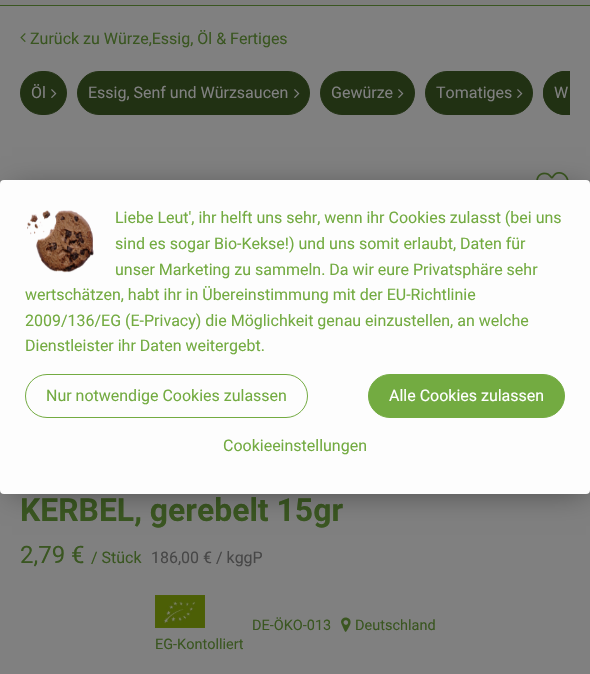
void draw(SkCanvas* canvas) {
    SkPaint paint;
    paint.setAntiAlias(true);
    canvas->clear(0xFF808080);
    paint.setColor(0xFF7C7C7B);
    canvas->drawRect(SkRect::MakeXYWH(0, 0, 590, 5), paint);
    paint.setColor(0xFF3A5621);
    canvas->drawRect(SkRect::MakeXYWH(0, 5, 590, 1), paint);
    canvas->drawImageRect(SkImages::DeferredFromEncodedData(SkData::MakeFromFileName("img1.png")), SkRect::MakeXYWH(20, 33, 6, 9), SkSamplingOptions());
    SkFont font1(fontMgr->matchFamilyStyle("Roboto", SkFontStyle::Normal()), 16);
    font1.setSubpixel(true);
    canvas->drawString("Zurück zu Würze,Essig, Öl & Fertiges", 30, 44, font1, paint);
    paint.setColor(0xFF213113);
    canvas->drawRoundRect(SkRect::MakeXYWH(20.5f, 71.5f, 46, 43), 21.5f, 21.5f, paint);
    paint.setStyle(SkPaint::kStroke_Style);
    paint.setStrokeWidth(1);
    canvas->drawRoundRect(SkRect::MakeXYWH(20.5f, 71.5f, 46, 43), 21.5f, 21.5f, paint);
    paint.setStyle(SkPaint::kFill_Style);
    paint.setColor(0xFF808080);
    canvas->drawString("Öl", 31, 98, font1, paint);
    canvas->drawImageRect(SkImages::DeferredFromEncodedData(SkData::MakeFromFileName("img2.png")), SkRect::MakeXYWH(51, 89, 6, 9), SkSamplingOptions());
    paint.setColor(0xFF213113);
    canvas->drawRoundRect(SkRect::MakeXYWH(77.5f, 71.5f, 232, 43), 21.5f, 21.5f, paint);
    paint.setStyle(SkPaint::kStroke_Style);
    canvas->drawRoundRect(SkRect::MakeXYWH(77.5f, 71.5f, 232, 43), 21.5f, 21.5f, paint);
    paint.setStyle(SkPaint::kFill_Style);
    paint.setColor(0xFF808080);
    canvas->drawString("Essig, Senf und Würzsaucen", 88, 98, font1, paint);
    canvas->drawImageRect(SkImages::DeferredFromEncodedData(SkData::MakeFromFileName("img2.png")), SkRect::MakeXYWH(294, 89, 6, 9), SkSamplingOptions());
    paint.setColor(0xFF213113);
    canvas->drawRoundRect(SkRect::MakeXYWH(320.5f, 71.5f, 94, 43), 21.5f, 21.5f, paint);
    paint.setStyle(SkPaint::kStroke_Style);
    canvas->drawRoundRect(SkRect::MakeXYWH(320.5f, 71.5f, 94, 43), 21.5f, 21.5f, paint);
    paint.setStyle(SkPaint::kFill_Style);
    paint.setColor(0xFF808080);
    canvas->drawString("Gewürze", 331, 98, font1, paint);
    canvas->drawImageRect(SkImages::DeferredFromEncodedData(SkData::MakeFromFileName("img2.png")), SkRect::MakeXYWH(398, 89, 6, 9), SkSamplingOptions());
    paint.setColor(0xFF213113);
    canvas->drawRoundRect(SkRect::MakeXYWH(425.5f, 71.5f, 107, 43), 21.5f, 21.5f, paint);
    paint.setStyle(SkPaint::kStroke_Style);
    canvas->drawRoundRect(SkRect::MakeXYWH(425.5f, 71.5f, 107, 43), 21.5f, 21.5f, paint);
    paint.setStyle(SkPaint::kFill_Style);
    paint.setColor(0xFF808080);
    canvas->drawString("Tomatiges", 436, 98, font1, paint);
    canvas->drawImageRect(SkImages::DeferredFromEncodedData(SkData::MakeFromFileName("img2.png")), SkRect::MakeXYWH(517, 89, 6, 9), SkSamplingOptions());
    paint.setColor(0xFF213113);
    canvas->drawPath(SkPathBuilder().moveTo(565, 71).lineTo(570, 71).lineTo(570, 115).lineTo(565, 115).cubicTo(553, 115, 543, 105, 543, 93).cubicTo(543, 81, 553, 71, 565, 71).close().detach(), paint);
    canvas->save();
    canvas->clipRect(SkRect::MakeXYWH(20, 51, 550, 84));
    paint.setStyle(SkPaint::kStroke_Style);
    canvas->drawRoundRect(SkRect::MakeXYWH(543.5f, 71.5f, 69, 43), 21.5f, 21.5f, paint);
    canvas->restore();
    paint.setStyle(SkPaint::kFill_Style);
    paint.setColor(0xFF808080);
    canvas->drawString("W", 554, 98, font1, paint);
    canvas->drawImageRect(SkImages::DeferredFromEncodedData(SkData::MakeFromFileName("img3.png")), SkRect::MakeXYWH(536, 172, 33, 8), SkSamplingOptions());
    SkFont font2(fontMgr->matchFamilyStyle("Roboto", SkFontStyle::Bold()), 31.9f);
    font2.setSubpixel(true);
    paint.setColor(0xFF3A5621);
    canvas->drawString("KERBEL, gerebelt 15gr", 20, 521, font2, paint);
    SkFont font3(fontMgr->matchFamilyStyle("Roboto", SkFontStyle::Normal()), 24);
    font3.setSubpixel(true);
    canvas->drawString("2,79 €", 20, 563, font3, paint);
    canvas->drawString("/ Stück", 91, 563, font1, paint);
    paint.setColor(0xFF474747);
    canvas->drawString("186,00 € / kggP", 151, 563, font1, paint);
    SkFont font4(fontMgr->matchFamilyStyle("Roboto", SkFontStyle::Normal()), 14.5f);
    font4.setSubpixel(true);
    paint.setColor(0xFF3A5621);
    canvas->drawString("DE-ÖKO-013", 252, 630, font4, paint);
    canvas->drawImageRect(SkImages::DeferredFromEncodedData(SkData::MakeFromFileName("img4.png")), SkRect::MakeXYWH(341, 617, 10, 15), SkSamplingOptions());
    canvas->drawString("Deutschland", 355, 630, font4, paint);
    canvas->drawImageRect(SkImages::DeferredFromEncodedData(SkData::MakeFromFileName("img5.png")), SkRect::MakeXYWH(155, 595, 50, 33), SkSamplingOptions());
    canvas->drawString("EG-Kontolliert", 155, 649, font4, paint);
    paint.setColor(0x80000000);
    paint.setMaskFilter(SkMaskFilter::MakeBlur(kNormal_SkBlurStyle, 15));
    canvas->drawRect(SkRect::MakeXYWH(12, 192, 574, 298), paint);
    paint.setMaskFilter(nullptr);
    paint.setColor(0xFFFDFDFD);
    canvas->drawRoundRect(SkRect::MakeXYWH(0, 180, 590, 314), 4, 4, paint);
    canvas->drawImageRect(SkImages::DeferredFromEncodedData(SkData::MakeFromFileName("img6.png")), SkRect::MakeXYWH(27, 210, 67, 63), SkSamplingOptions());
    paint.setColor(0xFF73AB41);
    canvas->drawString("Liebe Leut', ihr helft uns sehr, wenn ihr Cookies zulasst (bei uns", 115, 223, font1, paint);
    canvas->drawString("sind es sogar Bio-Kekse!) und uns somit erlaubt, Daten für", 115, 249, font1, paint);
    canvas->drawString("unser Marketing zu sammeln. Da wir eure Privatsphäre sehr", 115, 275, font1, paint);
    canvas->drawString("wertschätzen, habt ihr in Übereinstimmung mit der EU-Richtlinie", 25, 300, font1, paint);
    canvas->drawString("2009/136/EG (E-Privacy) die Möglichkeit genau einzustellen, an welche", 25, 326, font1, paint);
    canvas->drawString("Dienstleister ihr Daten weitergebt.", 25, 351, font1, paint);
    paint.setStyle(SkPaint::kStroke_Style);
    canvas->drawRoundRect(SkRect::MakeXYWH(25.5f, 374.5f, 282, 43), 21.5f, 21.5f, paint);
    paint.setStyle(SkPaint::kFill_Style);
    canvas->drawString("Nur notwendige Cookies zulassen", 46, 401, font1, paint);
    canvas->drawRoundRect(SkRect::MakeXYWH(368.5f, 374.5f, 196, 43), 21.5f, 21.5f, paint);
    paint.setStyle(SkPaint::kStroke_Style);
    canvas->drawRoundRect(SkRect::MakeXYWH(368.5f, 374.5f, 196, 43), 21.5f, 21.5f, paint);
    paint.setStyle(SkPaint::kFill_Style);
    paint.setColor(0xFFFFFFFF);
    canvas->drawString("Alle Cookies zulassen", 389, 401, font1, paint);
    paint.setColor(0xFF73AB41);
    canvas->drawString("Cookieeinstellungen", 223, 451, font1, paint);
}
